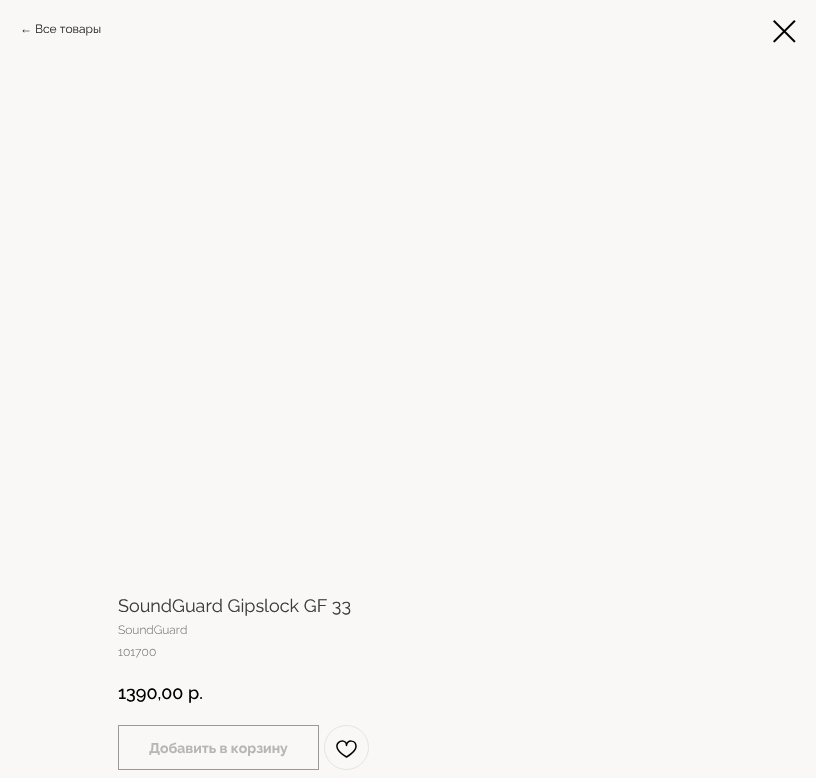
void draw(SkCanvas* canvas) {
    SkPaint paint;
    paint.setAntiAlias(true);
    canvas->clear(0xFFF9F8F6);
    SkFont font1(fontMgr->matchFamilyStyle("Liberation Sans", SkFontStyle::Normal()), 12);
    font1.setSubpixel(true);
    paint.setColor(0xFF323231);
    canvas->drawString("←", 20, 33, font1, paint);
    SkFont font2(fontMgr->matchFamilyStyle("Raleway", SkFontStyle::Normal()), 12);
    font2.setSubpixel(true);
    canvas->drawString("Все товары", 35, 33, font2, paint);
    canvas->drawImageRect(SkImages::DeferredFromEncodedData(SkData::MakeFromFileName("img1.png")), SkRect::MakeXYWH(773, 20, 23, 23), SkSamplingOptions());
    SkFont font3(fontMgr->matchFamilyStyle("Raleway", SkFontStyle::Normal()), 18);
    font3.setSubpixel(true);
    paint.setColor(0xFF3F3C3A);
    canvas->drawString("SoundGuard Gipslock GF 33", 118, 612, font3, paint);
    SkFont font4(fontMgr->matchFamilyStyle("Raleway", SkFontStyle(300, SkFontStyle::kNormal_Width, SkFontStyle::kUpright_Slant)), 12);
    font4.setSubpixel(true);
    paint.setColor(0xFF777777);
    canvas->drawString("SoundGuard", 118, 634, font4, paint);
    canvas->drawString("101700", 118, 656, font4, paint);
    SkFont font5(fontMgr->matchFamilyStyle("Raleway", SkFontStyle(500, SkFontStyle::kNormal_Width, SkFontStyle::kUpright_Slant)), 18);
    font5.setSubpixel(true);
    paint.setColor(0xFF000000);
    canvas->drawString("1390,00", 118, 699, font5, paint);
    canvas->drawString("р.", 188, 699, font5, paint);
    paint.setStyle(SkPaint::kStroke_Style);
    paint.setStrokeWidth(1);
    paint.setColor(0xFF9C9A98);
    canvas->drawRect(SkRect::MakeXYWH(118.5f, 725.5f, 200, 44), paint);
    SkFont font6(fontMgr->matchFamilyStyle("Raleway", SkFontStyle::Bold()), 14);
    font6.setSubpixel(true);
    paint.setStyle(SkPaint::kFill_Style);
    paint.setColor(0xFFB8B6B4);
    canvas->drawString("Добавить в корзину", 149, 753, font6, paint);
    paint.setStyle(SkPaint::kStroke_Style);
    paint.setColor(0xFFE4E4E4);
    canvas->drawCircle(346.5f, 747.5f, 22, paint);
    paint.setStrokeWidth(1.5f);
    paint.setStrokeJoin(SkPaint::kRound_Join);
    paint.setColor(0xFF000000);
    canvas->drawPath(SkPathBuilder().moveTo(356, 746.5f).cubicTo(356, 751.5f, 346.5f, 757, 346.5f, 757).cubicTo(325, 744.5f, 346.5f, 735, 346.5f, 745.5f).cubicTo(346.5f, 739.5f, 356, 739.5f, 356, 746.5f).close().detach(), paint);
}
